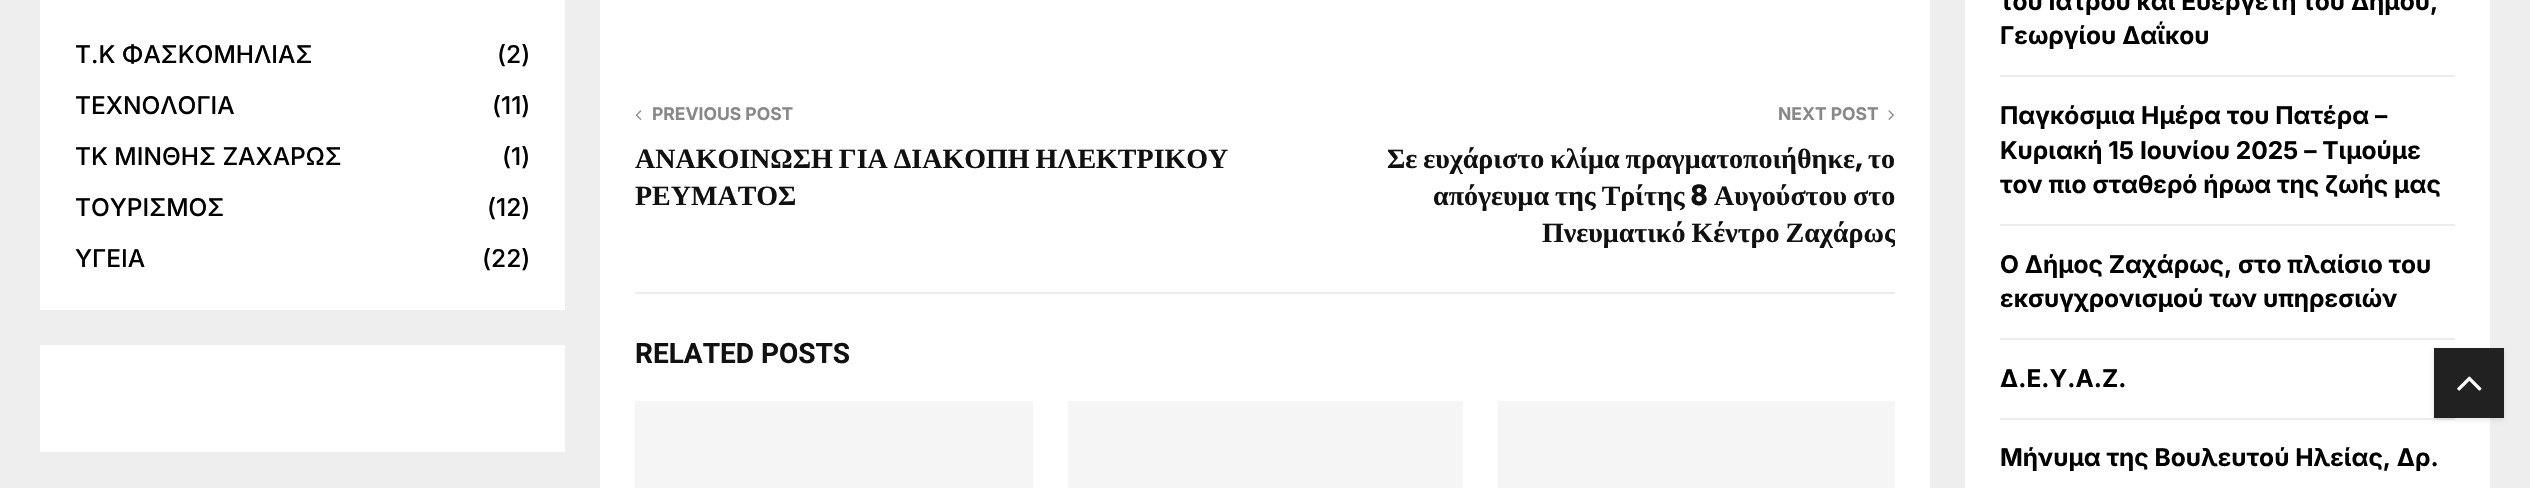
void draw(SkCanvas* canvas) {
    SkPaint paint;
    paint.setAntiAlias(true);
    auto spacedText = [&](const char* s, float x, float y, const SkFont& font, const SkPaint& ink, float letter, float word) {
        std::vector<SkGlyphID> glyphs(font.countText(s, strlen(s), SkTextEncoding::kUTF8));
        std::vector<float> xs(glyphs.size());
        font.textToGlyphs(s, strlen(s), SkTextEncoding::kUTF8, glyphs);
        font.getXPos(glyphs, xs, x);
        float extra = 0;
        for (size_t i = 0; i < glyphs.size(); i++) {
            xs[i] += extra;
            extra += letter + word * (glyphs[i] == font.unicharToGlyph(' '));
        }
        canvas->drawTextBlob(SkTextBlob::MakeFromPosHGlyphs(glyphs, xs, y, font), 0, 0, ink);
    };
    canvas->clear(0xFFEEEEEE);
    paint.setColor(0xFFFFFFFF);
    canvas->drawRect(SkRect::MakeXYWH(40, 0, 525, 310), paint);
    SkFont font1(fontMgr->matchFamilyStyle("Inter", SkFontStyle(500, SkFontStyle::kNormal_Width, SkFontStyle::kUpright_Slant)), 24.5f);
    font1.setSubpixel(true);
    paint.setColor(0xFF000000);
    canvas->drawString("Τ.Κ ΦΑΣΚΟΜΗΛΙΑΣ", 75, 63, font1, paint);
    canvas->drawString("(2)", 497, 63, font1, paint);
    canvas->drawString("ΤΕΧΝΟΛΟΓΙΑ", 75, 114, font1, paint);
    canvas->drawString("(11)", 492, 114, font1, paint);
    canvas->drawString("ΤΚ ΜΙΝΘΗΣ ΖΑΧΑΡΩΣ", 75, 165, font1, paint);
    canvas->drawString("(1)", 502, 165, font1, paint);
    canvas->drawString("ΤΟΥΡΙΣΜΟΣ", 75, 216, font1, paint);
    canvas->drawString("(12)", 487, 216, font1, paint);
    canvas->drawString("ΥΓΕΙΑ", 75, 267, font1, paint);
    canvas->drawString("(22)", 482, 267, font1, paint);
    paint.setColor(0xFFFFFFFF);
    canvas->drawRect(SkRect::MakeXYWH(40, 345, 525, 107), paint);
    canvas->drawRect(SkRect::MakeXYWH(600, 0, 1330, 488), paint);
    paint.setColor(0xFFECECEC);
    canvas->drawRect(SkRect::MakeXYWH(635, 292, 1260, 2), paint);
    canvas->drawImageRect(SkImages::DeferredFromEncodedData(SkData::MakeFromFileName("img1.png")), SkRect::MakeXYWH(635, 110, 7, 10), SkSamplingOptions());
    SkFont font2(fontMgr->matchFamilyStyle("Inter", SkFontStyle::Bold()), 17.5f);
    font2.setSubpixel(true);
    paint.setColor(0xFF888888);
    canvas->drawString("PREVIOUS POST", 652, 120, font2, paint);
    SkFont font3(fontMgr->matchFamilyStyle("Liberation Serif", SkFontStyle::Bold()), 28);
    font3.setSubpixel(true);
    paint.setColor(0xFF111111);
    spacedText("ΑΝΑΚΟΙΝΩΣΗ ΓΙΑ ΔΙΑΚΟΠΗ ΗΛΕΚΤΡΙΚΟΥ", 635, 168, font3, paint, 0, -1);
    canvas->drawString("ΡΕΥΜΑΤΟΣ", 635, 205, font3, paint);
    paint.setColor(0xFF888888);
    canvas->drawString("NEXT POST", 1778, 120, font2, paint);
    canvas->drawImageRect(SkImages::DeferredFromEncodedData(SkData::MakeFromFileName("img2.png")), SkRect::MakeXYWH(1888, 110, 6, 10), SkSamplingOptions());
    paint.setColor(0xFF111111);
    spacedText("Σε ευχάριστο κλίμα πραγματοποιήθηκε", 1387, 168, font3, paint, 0, -1);
    SkFont font4(fontMgr->matchFamilyStyle("Poppins", SkFontStyle::Bold()), 28);
    font4.setSubpixel(true);
    canvas->drawString(",", 1855, 168, font4, paint);
    canvas->drawString("το", 1868, 168, font3, paint);
    spacedText("απόγευμα της Τρίτης", 1433, 205, font3, paint, 0, -1);
    canvas->drawString("8", 1690, 205, font4, paint);
    spacedText("Αυγούστου στο", 1714, 205, font3, paint, 0, -1);
    canvas->save();
    canvas->clipRect(SkRect::MakeXYWH(1300, 93, 595, 159));
    spacedText("Πνευματικό Κέντρο Ζαχάρως", 1542, 242, font3, paint, 0, -1);
    canvas->restore();
    SkFont font5(fontMgr->matchFamilyStyle("Roboto", SkFontStyle::Bold()), 28);
    font5.setSubpixel(true);
    canvas->drawString("RELATED POSTS", 635, 363, font5, paint);
    paint.setColor(0xFFF5F5F5);
    canvas->drawRect(SkRect::MakeXYWH(635, 401, 398, 87), paint);
    canvas->drawRect(SkRect::MakeXYWH(1068, 401, 395, 87), paint);
    canvas->drawRect(SkRect::MakeXYWH(1498, 401, 397, 87), paint);
    paint.setColor(0xFFFFFFFF);
    canvas->drawRect(SkRect::MakeXYWH(1965, 0, 525, 488), paint);
    paint.setColor(0xFFECECEC);
    canvas->drawRect(SkRect::MakeXYWH(2000, 75, 455, 2), paint);
    SkFont font6(fontMgr->matchFamilyStyle("Inter", SkFontStyle::Bold()), 24.5f);
    font6.setSubpixel(true);
    paint.setColor(0xFF000000);
    canvas->drawString("του Ιατρού και Ευεργέτη του Δήμου,", 2000, 10, font6, paint);
    canvas->drawString("Γεωργίου Δαΐκου", 2000, 44, font6, paint);
    paint.setColor(0xFFECECEC);
    canvas->drawRect(SkRect::MakeXYWH(2000, 224, 455, 2), paint);
    paint.setColor(0xFF000000);
    canvas->drawString("Παγκόσμια Ημέρα του Πατέρα –", 2000, 124, font6, paint);
    canvas->drawString("Κυριακή 15 Ιουνίου 2025 – Τιμούμε", 2000, 159, font6, paint);
    canvas->drawString("τον πιο σταθερό ήρωα της ζωής μας", 2000, 193, font6, paint);
    paint.setColor(0xFFECECEC);
    canvas->drawRect(SkRect::MakeXYWH(2000, 338, 455, 2), paint);
    paint.setColor(0xFF000000);
    canvas->drawString("Ο Δήμος Ζαχάρως, στο πλαίσιο του", 2000, 273, font6, paint);
    canvas->drawString("εκσυγχρονισμού των υπηρεσιών", 2000, 307, font6, paint);
    paint.setColor(0xFFECECEC);
    canvas->drawRect(SkRect::MakeXYWH(2000, 418, 455, 2), paint);
    paint.setColor(0xFF000000);
    canvas->drawString("Δ.Ε.Υ.Α.Ζ.", 2000, 387, font6, paint);
    canvas->drawString("Μήνυμα της Βουλευτού Ηλείας, Δρ.", 2000, 466, font6, paint);
    paint.setColor(0x1A000000);
    paint.setMaskFilter(SkMaskFilter::MakeBlur(kNormal_SkBlurStyle, 2));
    canvas->drawRect(SkRect::MakeXYWH(2434, 350, 70, 70), paint);
    paint.setMaskFilter(nullptr);
    paint.setColor(0xFF212121);
    canvas->drawRect(SkRect::MakeXYWH(2434, 348, 70, 70), paint);
    canvas->drawImageRect(SkImages::DeferredFromEncodedData(SkData::MakeFromFileName("img3.png")), SkRect::MakeXYWH(2457, 376, 25, 15), SkSamplingOptions());
}
